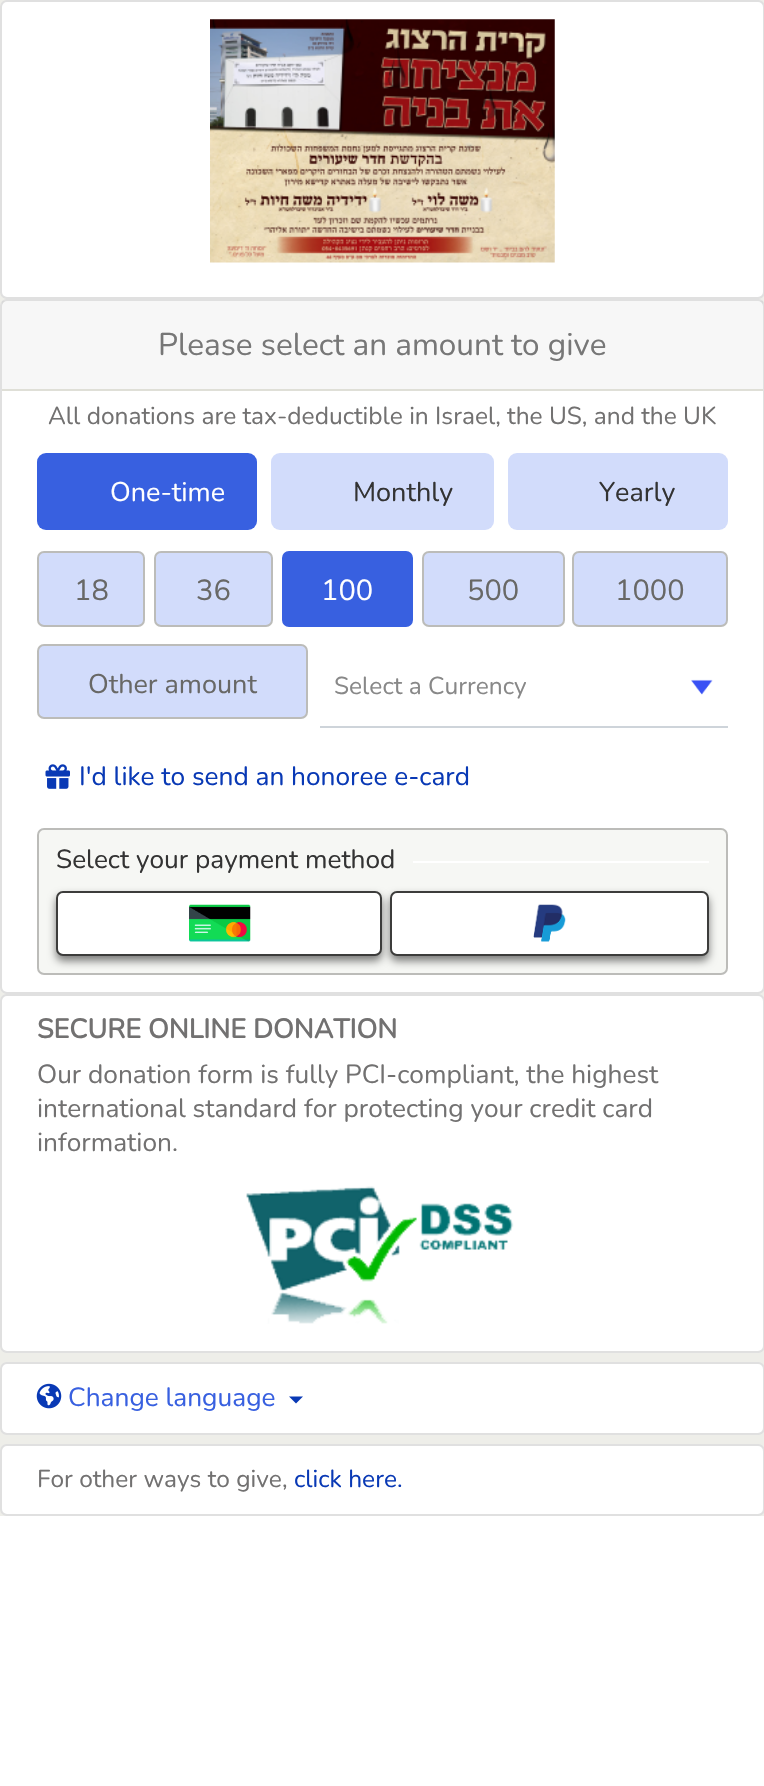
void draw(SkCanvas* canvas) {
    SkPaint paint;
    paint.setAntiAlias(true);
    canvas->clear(0xFFFFFFFF);
    paint.setColor(0xFFEEEEE9);
    canvas->drawRect(SkRect::MakeXYWH(0, 0, 764, 1516), paint);
    paint.setColor(0xFFFFFFFF);
    canvas->drawRoundRect(SkRect::MakeXYWH(0, 0, 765, 299), 7, 7, paint);
    paint.setStyle(SkPaint::kStroke_Style);
    paint.setStrokeWidth(2);
    paint.setColor(0x1F000000);
    canvas->drawRoundRect(SkRect::MakeXYWH(1, 1, 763, 297), 6, 6, paint);
    canvas->drawImageRect(SkImages::DeferredFromEncodedData(SkData::MakeFromFileName("img1.png")), SkRect::MakeXYWH(210, 19, 345, 244), SkSamplingOptions());
    paint.setStyle(SkPaint::kFill_Style);
    paint.setColor(0xFFFFFFFF);
    canvas->drawRoundRect(SkRect::MakeXYWH(0, 299, 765, 695), 7, 7, paint);
    paint.setStyle(SkPaint::kStroke_Style);
    paint.setColor(0x1F000000);
    canvas->drawRoundRect(SkRect::MakeXYWH(1, 300, 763, 693), 6, 6, paint);
    paint.setStyle(SkPaint::kFill_Style);
    paint.setColor(0x08000000);
    canvas->drawRect(SkRect::MakeXYWH(2, 301, 761, 88), paint);
    paint.setColor(0xFFDFDFD7);
    canvas->drawRect(SkRect::MakeXYWH(2, 389, 761, 2), paint);
    SkFont font1(fontMgr->matchFamilyStyle("Nunito", SkFontStyle(200, SkFontStyle::kNormal_Width, SkFontStyle::kUpright_Slant)), 31.5f);
    font1.setSubpixel(true);
    paint.setColor(0xFF777777);
    canvas->drawString("Please select an amount to give", 158, 355, font1, paint);
    SkFont font2(fontMgr->matchFamilyStyle("Nunito", SkFontStyle(200, SkFontStyle::kNormal_Width, SkFontStyle::kUpright_Slant)), 24.5f);
    font2.setSubpixel(true);
    paint.setColor(0xFF727171);
    canvas->drawString("All donations are tax-deductible in Israel, the US, and the UK", 48, 424, font2, paint);
    paint.setColor(0xFF3860E0);
    canvas->drawRoundRect(SkRect::MakeXYWH(37, 453, 220, 77), 9, 9, paint);
    SkFont font3(fontMgr->matchFamilyStyle("Nunito", SkFontStyle(200, SkFontStyle::kNormal_Width, SkFontStyle::kUpright_Slant)), 27);
    font3.setSubpixel(true);
    paint.setColor(0xFFFFFFFF);
    canvas->drawString("One-time", 110, 501, font3, paint);
    paint.setColor(0xFFD2DCFB);
    canvas->drawRoundRect(SkRect::MakeXYWH(271, 453, 223, 77), 9, 9, paint);
    paint.setColor(0xFF333333);
    canvas->drawString("Monthly", 353, 501, font3, paint);
    paint.setColor(0xFFD2DCFB);
    canvas->drawRoundRect(SkRect::MakeXYWH(508, 453, 220, 77), 9, 9, paint);
    paint.setColor(0xFF333333);
    canvas->drawString("Yearly", 599, 501, font3, paint);
    paint.setColor(0xFFD2DCFB);
    canvas->drawRoundRect(SkRect::MakeXYWH(38, 552, 106, 74), 6, 6, paint);
    paint.setStyle(SkPaint::kStroke_Style);
    paint.setColor(0xFFBCBCB9);
    canvas->drawRoundRect(SkRect::MakeXYWH(38, 552, 106, 74), 6, 6, paint);
    SkFont font4(fontMgr->matchFamilyStyle("Nunito", SkFontStyle(200, SkFontStyle::kNormal_Width, SkFontStyle::kUpright_Slant)), 29);
    font4.setSubpixel(true);
    paint.setStyle(SkPaint::kFill_Style);
    paint.setColor(0xFF686866);
    canvas->drawString("18", 74, 600, font4, paint);
    paint.setColor(0xFFD2DCFB);
    canvas->drawRoundRect(SkRect::MakeXYWH(155, 552, 117, 74), 6, 6, paint);
    paint.setStyle(SkPaint::kStroke_Style);
    paint.setColor(0xFFBCBCB9);
    canvas->drawRoundRect(SkRect::MakeXYWH(155, 552, 117, 74), 6, 6, paint);
    paint.setStyle(SkPaint::kFill_Style);
    paint.setColor(0xFF686866);
    canvas->drawString("36", 196, 600, font4, paint);
    paint.setColor(0xFF3860E0);
    canvas->drawRoundRect(SkRect::MakeXYWH(283, 552, 129, 74), 6, 6, paint);
    paint.setStyle(SkPaint::kStroke_Style);
    canvas->drawRoundRect(SkRect::MakeXYWH(283, 552, 129, 74), 6, 6, paint);
    paint.setStyle(SkPaint::kFill_Style);
    paint.setColor(0xFFFFFFFF);
    canvas->drawString("100", 321, 600, font4, paint);
    paint.setColor(0xFFD2DCFB);
    canvas->drawRoundRect(SkRect::MakeXYWH(423, 552, 141, 74), 6, 6, paint);
    paint.setStyle(SkPaint::kStroke_Style);
    paint.setColor(0xFFBCBCB9);
    canvas->drawRoundRect(SkRect::MakeXYWH(423, 552, 141, 74), 6, 6, paint);
    paint.setStyle(SkPaint::kFill_Style);
    paint.setColor(0xFF686866);
    canvas->drawString("500", 467, 600, font4, paint);
    paint.setColor(0xFFD2DCFB);
    canvas->drawRoundRect(SkRect::MakeXYWH(573, 552, 154, 74), 6, 6, paint);
    paint.setStyle(SkPaint::kStroke_Style);
    paint.setColor(0xFFBCBCB9);
    canvas->drawRoundRect(SkRect::MakeXYWH(573, 552, 154, 74), 6, 6, paint);
    paint.setStyle(SkPaint::kFill_Style);
    paint.setColor(0xFF686866);
    canvas->drawString("1000", 615, 600, font4, paint);
    paint.setColor(0xFFD2DCFB);
    canvas->drawRoundRect(SkRect::MakeXYWH(38, 645, 269, 73), 6, 6, paint);
    paint.setStyle(SkPaint::kStroke_Style);
    paint.setColor(0xFFBCBCB9);
    canvas->drawRoundRect(SkRect::MakeXYWH(38, 645, 269, 73), 6, 6, paint);
    paint.setStyle(SkPaint::kFill_Style);
    paint.setColor(0xFF686866);
    canvas->drawString("Other amount", 88, 693, font3, paint);
    canvas->drawImageRect(SkImages::DeferredFromEncodedData(SkData::MakeFromFileName("img2.png")), SkRect::MakeXYWH(691, 679, 22, 16), SkSamplingOptions());
    paint.setColor(0xFFCED4DA);
    canvas->drawRect(SkRect::MakeXYWH(320, 726, 408, 2), paint);
    paint.setColor(0xFF888888);
    canvas->drawString("Select a Currency", 334, 694, font2, paint);
    canvas->drawImageRect(SkImages::DeferredFromEncodedData(SkData::MakeFromFileName("img3.png")), SkRect::MakeXYWH(45, 764, 25, 25), SkSamplingOptions());
    SkFont font5(fontMgr->matchFamilyStyle("Nunito", SkFontStyle(200, SkFontStyle::kNormal_Width, SkFontStyle::kUpright_Slant)), 26.25f);
    font5.setSubpixel(true);
    paint.setColor(0xFF0939B5);
    canvas->drawString("I'd like to send an honoree e-card", 79, 785, font5, paint);
    paint.setColor(0xFFF6F7F4);
    canvas->drawRoundRect(SkRect::MakeXYWH(38, 829, 689, 145), 6, 6, paint);
    paint.setStyle(SkPaint::kStroke_Style);
    paint.setColor(0xFFBCBCB9);
    canvas->drawRoundRect(SkRect::MakeXYWH(38, 829, 689, 145), 6, 6, paint);
    paint.setStyle(SkPaint::kFill_Style);
    paint.setColor(0xFF333333);
    canvas->drawString("Select your payment method", 56, 868, font5, paint);
    paint.setColor(0xFFFFFFFF);
    canvas->drawRect(SkRect::MakeXYWH(413, 861, 296, 2), paint);
    paint.setColor(0x80000000);
    paint.setMaskFilter(SkMaskFilter::MakeBlur(kNormal_SkBlurStyle, 4.5f));
    canvas->drawRoundRect(SkRect::MakeXYWH(56, 896, 326, 65), 7, 7, paint);
    paint.setMaskFilter(nullptr);
    paint.setColor(0xFFFFFFFF);
    canvas->drawRoundRect(SkRect::MakeXYWH(57, 892, 324, 63), 6, 6, paint);
    paint.setStyle(SkPaint::kStroke_Style);
    paint.setColor(0xFF3C3C3B);
    canvas->drawRoundRect(SkRect::MakeXYWH(57, 892, 324, 63), 6, 6, paint);
    canvas->drawImageRect(SkImages::DeferredFromEncodedData(SkData::MakeFromFileName("img4.png")), SkRect::MakeXYWH(189, 904, 62, 38), SkSamplingOptions());
    paint.setStyle(SkPaint::kFill_Style);
    paint.setColor(0x80000000);
    paint.setMaskFilter(SkMaskFilter::MakeBlur(kNormal_SkBlurStyle, 4.5f));
    canvas->drawRoundRect(SkRect::MakeXYWH(390, 896, 319, 65), 7, 7, paint);
    paint.setMaskFilter(nullptr);
    paint.setColor(0xFFFFFFFF);
    canvas->drawRoundRect(SkRect::MakeXYWH(391, 892, 317, 63), 6, 6, paint);
    paint.setStyle(SkPaint::kStroke_Style);
    paint.setColor(0xFF3C3C3B);
    canvas->drawRoundRect(SkRect::MakeXYWH(391, 892, 317, 63), 6, 6, paint);
    canvas->drawImageRect(SkImages::DeferredFromEncodedData(SkData::MakeFromFileName("img5.png")), SkRect::MakeXYWH(533, 904, 33, 38), SkSamplingOptions());
    paint.setStyle(SkPaint::kFill_Style);
    paint.setColor(0xFFFFFFFF);
    canvas->drawRoundRect(SkRect::MakeXYWH(0, 994, 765, 359), 7, 7, paint);
    paint.setStyle(SkPaint::kStroke_Style);
    paint.setColor(0x1F000000);
    canvas->drawRoundRect(SkRect::MakeXYWH(1, 995, 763, 357), 6, 6, paint);
    SkFont font6(fontMgr->matchFamilyStyle("Nunito", SkFontStyle::Bold()), 27);
    font6.setSubpixel(true);
    paint.setStyle(SkPaint::kFill_Style);
    paint.setColor(0xFF727171);
    canvas->drawString("SECURE ONLINE DONATION", 37, 1038, font6, paint);
    canvas->drawString("Our donation form is fully PCI-compliant, the highest", 37, 1083, font5, paint);
    canvas->drawString("international standard for protecting your credit card", 37, 1117, font5, paint);
    canvas->drawString("information.", 37, 1151, font5, paint);
    canvas->drawImageRect(SkImages::DeferredFromEncodedData(SkData::MakeFromFileName("img6.png")), SkRect::MakeXYWH(246, 1186, 268, 138), SkSamplingOptions());
    paint.setColor(0xFFFFFFFF);
    canvas->drawRoundRect(SkRect::MakeXYWH(0, 1362, 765, 73), 7, 7, paint);
    paint.setStyle(SkPaint::kStroke_Style);
    paint.setColor(0x1F000000);
    canvas->drawRoundRect(SkRect::MakeXYWH(1, 1363, 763, 71), 6, 6, paint);
    canvas->drawImageRect(SkImages::DeferredFromEncodedData(SkData::MakeFromFileName("img7.png")), SkRect::MakeXYWH(36, 1383, 26, 26), SkSamplingOptions());
    paint.setStyle(SkPaint::kFill_Style);
    paint.setColor(0xFF3860E0);
    canvas->drawString("Change language", 68, 1406, font5, paint);
    paint.setColor(0xFF0939B5);
    canvas->drawPath(SkPathBuilder().moveTo(289, 1396.5f).lineTo(303, 1396.5f).lineTo(296, 1403.5f).close().detach(), paint);
    paint.setColor(0xFFFFFFFF);
    canvas->drawRoundRect(SkRect::MakeXYWH(0, 1444, 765, 72), 7, 7, paint);
    paint.setStyle(SkPaint::kStroke_Style);
    paint.setColor(0x1F000000);
    canvas->drawRoundRect(SkRect::MakeXYWH(1, 1445, 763, 70), 6, 6, paint);
    paint.setStyle(SkPaint::kFill_Style);
    paint.setColor(0xFF727171);
    canvas->drawString("For other ways to give,", 37, 1487, font2, paint);
    paint.setColor(0xFF0939B5);
    canvas->drawString("click here.", 294, 1487, font2, paint);
}
